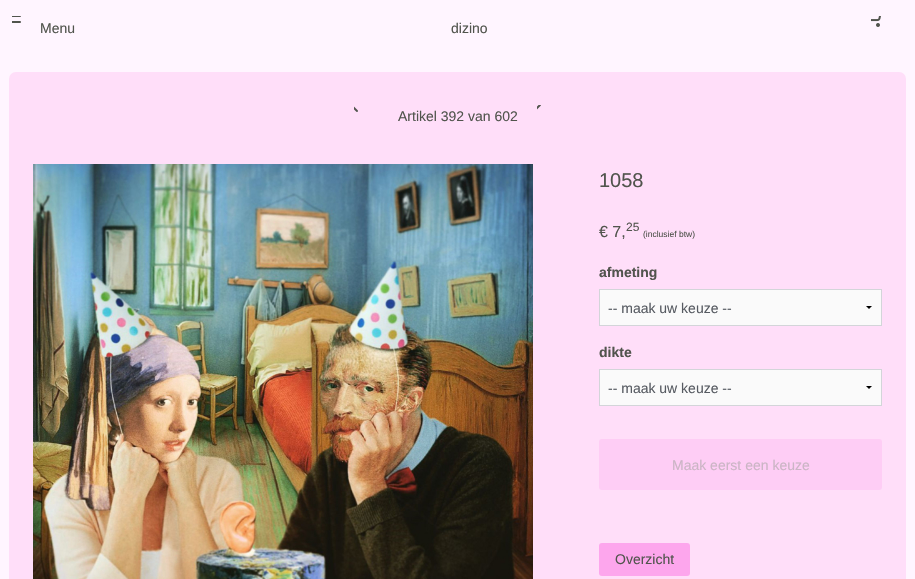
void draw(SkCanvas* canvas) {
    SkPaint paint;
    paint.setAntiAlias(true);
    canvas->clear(0xFFFFF5FF);
    canvas->drawImageRect(SkImages::DeferredFromEncodedData(SkData::MakeFromFileName("img1.png")), SkRect::MakeXYWH(12, 16, 9, 7), SkSamplingOptions());
    SkFont font1(fontMgr->matchFamilyStyle("Liberation Sans", SkFontStyle::Normal()), 14);
    font1.setSubpixel(true);
    paint.setColor(0xFF51544D);
    canvas->drawString("Menu", 40, 33, font1, paint);
    canvas->drawString("dizino", 451, 33, font1, paint);
    canvas->drawImageRect(SkImages::DeferredFromEncodedData(SkData::MakeFromFileName("img2.png")), SkRect::MakeXYWH(871, 16, 10, 11), SkSamplingOptions());
    paint.setColor(0xFFFFDEF9);
    canvas->drawRoundRect(SkRect::MakeXYWH(9, 72, 897, 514), 7, 7, paint);
    canvas->drawImageRect(SkImages::DeferredFromEncodedData(SkData::MakeFromFileName("img3.png")), SkRect::MakeXYWH(354, 106, 4, 6), SkSamplingOptions());
    canvas->drawImageRect(SkImages::DeferredFromEncodedData(SkData::MakeFromFileName("img4.png")), SkRect::MakeXYWH(537, 105, 4, 5), SkSamplingOptions());
    paint.setColor(0xFF51544D);
    canvas->drawString("Artikel 392 van 602", 398, 121, font1, paint);
    canvas->drawImageRect(SkImages::DeferredFromEncodedData(SkData::MakeFromFileName("img5.png")), SkRect::MakeXYWH(33, 164, 500, 415), SkSamplingOptions());
    SkFont font2(fontMgr->matchFamilyStyle("Liberation Sans", SkFontStyle::Normal()), 20);
    font2.setSubpixel(true);
    canvas->drawString("1058", 599, 187, font2, paint);
    SkFont font3(fontMgr->matchFamilyStyle("Liberation Sans", SkFontStyle::Normal()), 16);
    font3.setSubpixel(true);
    canvas->drawString("€ 7,", 599, 237, font3, paint);
    SkFont font4(fontMgr->matchFamilyStyle("Liberation Sans", SkFontStyle::Normal()), 12);
    font4.setSubpixel(true);
    canvas->drawString("25", 626, 231, font4, paint);
    SkFont font5(fontMgr->matchFamilyStyle("Liberation Sans", SkFontStyle::Normal()), 8.5f);
    font5.setSubpixel(true);
    canvas->drawString("(inclusief btw)", 643, 237, font5, paint);
    SkFont font6(fontMgr->matchFamilyStyle("Liberation Sans", SkFontStyle::Bold()), 14);
    font6.setSubpixel(true);
    canvas->drawString("afmeting", 599, 277, font6, paint);
    paint.setColor(0xFFFAFAFA);
    canvas->drawRect(SkRect::MakeXYWH(600, 290, 281, 35), paint);
    paint.setColor(0xFF000000);
    canvas->drawPath(SkPathBuilder().moveTo(872, 306).lineTo(869, 309).lineTo(866, 306).close().detach(), paint);
    paint.setStyle(SkPaint::kStroke_Style);
    paint.setStrokeWidth(1);
    paint.setColor(0xFFD3D5D9);
    canvas->drawRect(SkRect::MakeXYWH(599.5f, 289.5f, 282, 36), paint);
    paint.setStyle(SkPaint::kFill_Style);
    paint.setColor(0xFF575B62);
    canvas->drawString("-- maak uw keuze --", 608, 313, font1, paint);
    paint.setColor(0xFF51544D);
    canvas->drawString("dikte", 599, 357, font6, paint);
    paint.setColor(0xFFFAFAFA);
    canvas->drawRect(SkRect::MakeXYWH(600, 370, 281, 35), paint);
    paint.setColor(0xFF000000);
    canvas->drawPath(SkPathBuilder().moveTo(872, 386).lineTo(869, 389).lineTo(866, 386).close().detach(), paint);
    paint.setStyle(SkPaint::kStroke_Style);
    paint.setColor(0xFFD3D5D9);
    canvas->drawRect(SkRect::MakeXYWH(599.5f, 369.5f, 282, 36), paint);
    paint.setStyle(SkPaint::kFill_Style);
    paint.setColor(0xFF575B62);
    canvas->drawString("-- maak uw keuze --", 608, 393, font1, paint);
    paint.setColor(0xFFFECDF5);
    canvas->drawRoundRect(SkRect::MakeXYWH(599, 439, 283, 51), 3, 3, paint);
    paint.setColor(0xFFCBB5C5);
    canvas->drawString("Maak eerst een keuze", 672, 470, font1, paint);
    paint.setColor(0xFFFDA6ED);
    canvas->drawRoundRect(SkRect::MakeXYWH(599, 543, 91, 33), 3, 3, paint);
    paint.setColor(0xFF51544D);
    canvas->drawString("Overzicht", 615, 564, font1, paint);
}
